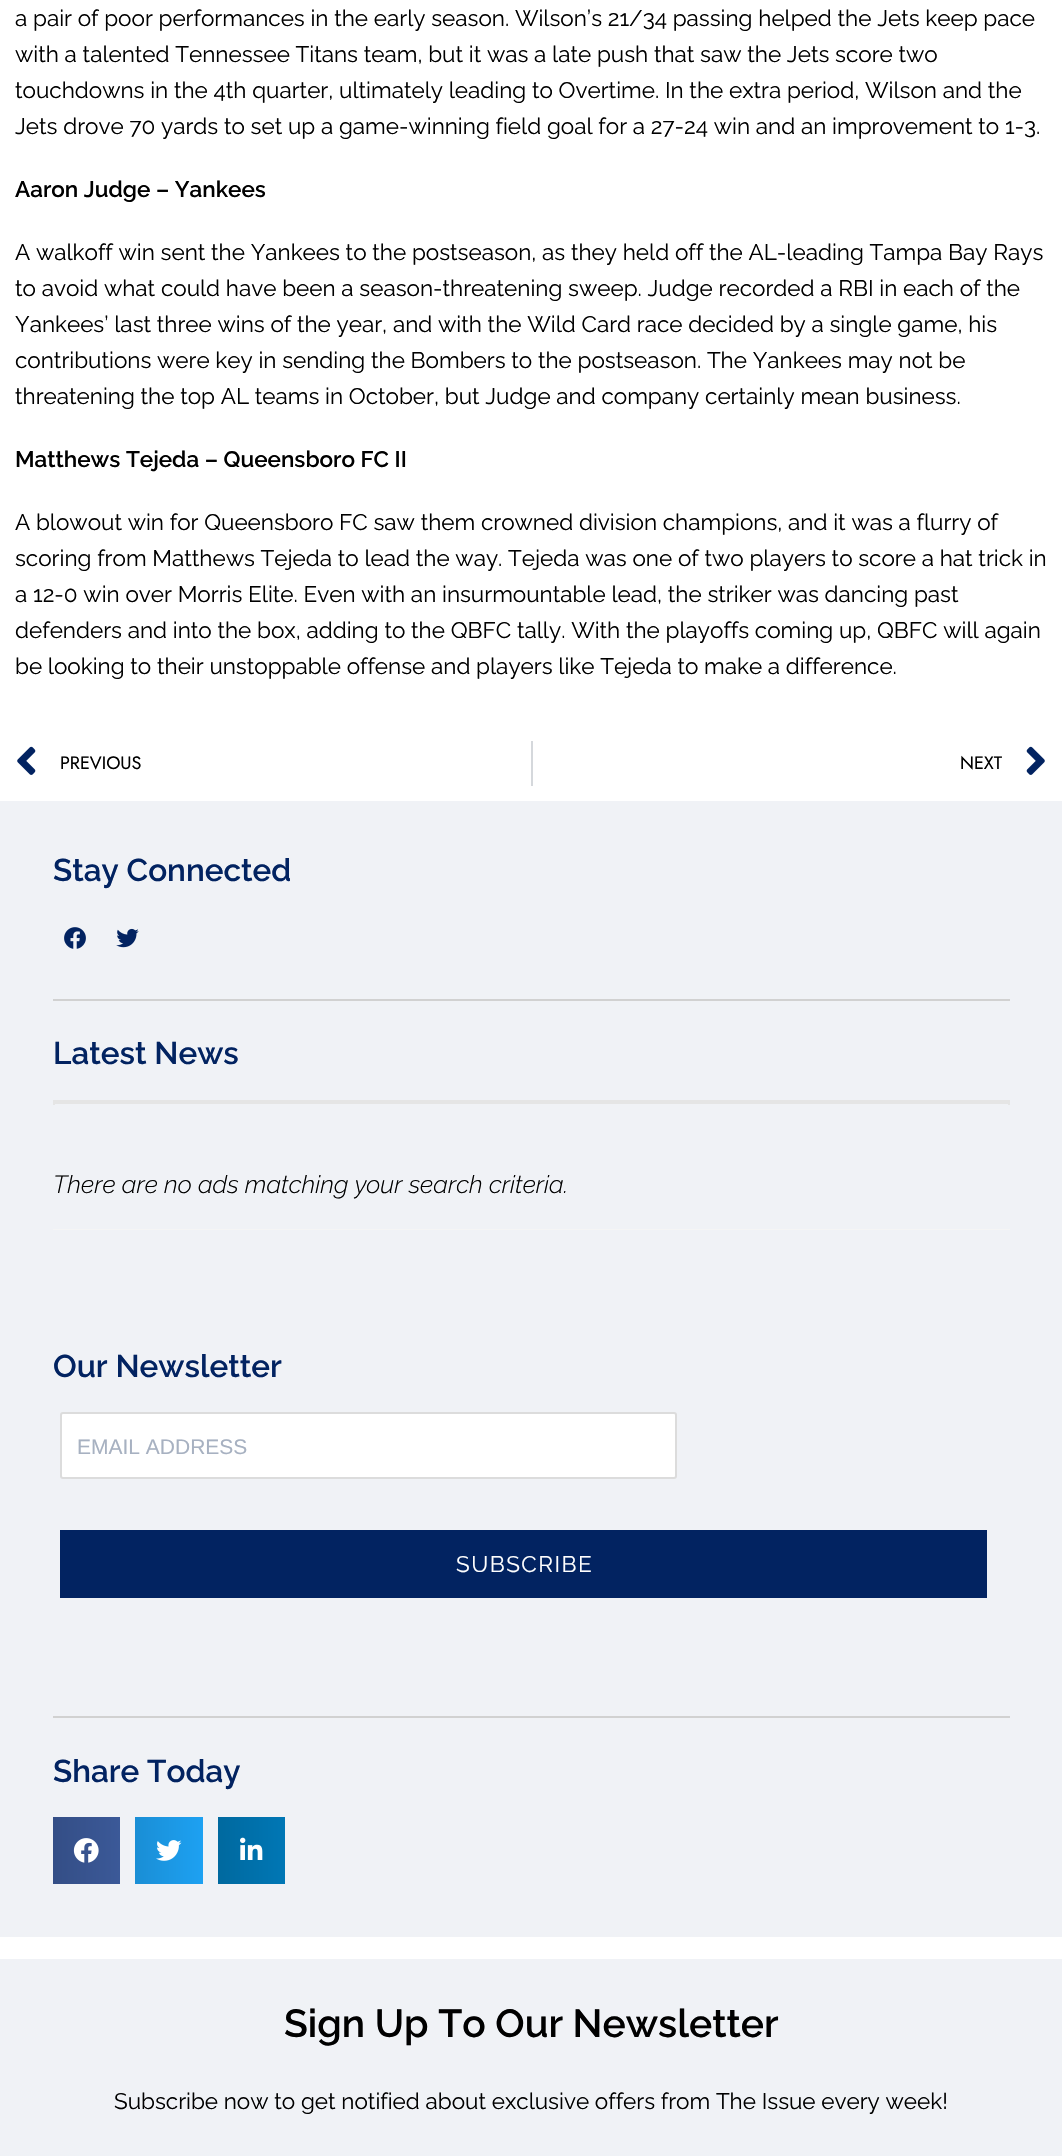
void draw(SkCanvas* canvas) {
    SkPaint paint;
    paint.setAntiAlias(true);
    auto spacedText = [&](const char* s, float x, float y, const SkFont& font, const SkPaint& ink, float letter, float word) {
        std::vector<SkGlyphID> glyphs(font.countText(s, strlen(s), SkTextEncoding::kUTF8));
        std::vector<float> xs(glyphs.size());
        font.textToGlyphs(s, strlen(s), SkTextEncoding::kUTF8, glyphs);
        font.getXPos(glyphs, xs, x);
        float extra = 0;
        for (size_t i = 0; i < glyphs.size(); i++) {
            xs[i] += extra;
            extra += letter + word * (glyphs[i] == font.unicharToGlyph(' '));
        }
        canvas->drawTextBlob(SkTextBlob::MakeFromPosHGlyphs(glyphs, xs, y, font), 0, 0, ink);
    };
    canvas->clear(0xFFFFFFFF);
    SkFont font1(fontMgr->matchFamilyStyle("Raleway", SkFontStyle::Normal()), 22.5f);
    font1.setSubpixel(true);
    paint.setColor(0xFF000000);
    canvas->drawString("a pair of poor performances in the early season. Wilson’s 21/34 passing helped the Jets keep pace", 15, 26, font1, paint);
    canvas->drawString("with a talented Tennessee Titans team, but it was a late push that saw the Jets score two", 15, 62, font1, paint);
    canvas->drawString("touchdowns in the 4th quarter, ultimately leading to Overtime. In the extra period, Wilson and the", 15, 98, font1, paint);
    canvas->drawString("Jets drove 70 yards to set up a game-winning field goal for a 27-24 win and an improvement to 1-3.", 15, 134, font1, paint);
    SkFont font2(fontMgr->matchFamilyStyle("Raleway", SkFontStyle(600, SkFontStyle::kNormal_Width, SkFontStyle::kUpright_Slant)), 22.5f);
    font2.setSubpixel(true);
    canvas->drawString("Aaron Judge – Yankees", 15, 197, font2, paint);
    canvas->drawString("A walkoff win sent the Yankees to the postseason, as they held off the AL-leading Tampa Bay Rays", 15, 260, font1, paint);
    canvas->drawString("to avoid what could have been a season-threatening sweep. Judge recorded a RBI in each of the", 15, 296, font1, paint);
    canvas->drawString("Yankees’ last three wins of the year, and with the Wild Card race decided by a single game, his", 15, 332, font1, paint);
    canvas->drawString("contributions were key in sending the Bombers to the postseason. The Yankees may not be", 15, 368, font1, paint);
    canvas->drawString("threatening the top AL teams in October, but Judge and company certainly mean business.", 15, 404, font1, paint);
    canvas->drawString("Matthews Tejeda – Queensboro FC II", 15, 467, font2, paint);
    canvas->drawString("A blowout win for Queensboro FC saw them crowned division champions, and it was a flurry of", 15, 530, font1, paint);
    canvas->drawString("scoring from Matthews Tejeda to lead the way. Tejeda was one of two players to score a hat trick in", 15, 566, font1, paint);
    canvas->drawString("a 12-0 win over Morris Elite. Even with an insurmountable lead, the striker was dancing past", 15, 602, font1, paint);
    canvas->drawString("defenders and into the box, adding to the QBFC tally. With the playoffs coming up, QBFC will again", 15, 638, font1, paint);
    canvas->drawString("be looking to their unstoppable offense and players like Tejeda to make a difference.", 15, 674, font1, paint);
    canvas->drawImageRect(SkImages::DeferredFromEncodedData(SkData::MakeFromFileName("img1.png")), SkRect::MakeXYWH(17, 746, 19, 29), SkSamplingOptions());
    SkFont font3(fontMgr->matchFamilyStyle("Jost", SkFontStyle::Normal()), 18);
    font3.setSubpixel(true);
    canvas->drawString("PREVIOUS", 60, 769, font3, paint);
    paint.setColor(0xFFD5D8DC);
    canvas->drawRect(SkRect::MakeXYWH(531, 741, 2, 45), paint);
    paint.setColor(0xFF000000);
    canvas->drawString("NEXT", 960, 769, font3, paint);
    canvas->drawImageRect(SkImages::DeferredFromEncodedData(SkData::MakeFromFileName("img2.png")), SkRect::MakeXYWH(1026, 746, 19, 29), SkSamplingOptions());
    paint.setColor(0xFFF0F2F6);
    canvas->drawRect(SkRect::MakeXYWH(0, 801, 1062, 1136), paint);
    SkFont font4(fontMgr->matchFamilyStyle("Raleway", SkFontStyle(600, SkFontStyle::kNormal_Width, SkFontStyle::kUpright_Slant)), 31.5f);
    font4.setSubpixel(true);
    paint.setColor(0xFF022361);
    canvas->drawString("Stay Connected", 53, 881, font4, paint);
    canvas->drawImageRect(SkImages::DeferredFromEncodedData(SkData::MakeFromFileName("img3.png")), SkRect::MakeXYWH(64, 927, 22, 22), SkSamplingOptions());
    canvas->drawImageRect(SkImages::DeferredFromEncodedData(SkData::MakeFromFileName("img4.png")), SkRect::MakeXYWH(116, 928, 23, 20), SkSamplingOptions());
    paint.setColor(0xFFD1D1D1);
    canvas->drawRect(SkRect::MakeXYWH(53, 999, 957, 2), paint);
    paint.setColor(0xFF022361);
    canvas->drawString("Latest News", 53, 1064, font4, paint);
    paint.setColor(0xFFE5E5E5);
    canvas->drawRect(SkRect::MakeXYWH(53, 1100, 957, 1), paint);
    canvas->drawRect(SkRect::MakeXYWH(1008, 1100, 2, 5), paint);
    canvas->drawRect(SkRect::MakeXYWH(53, 1101, 957, 3), paint);
    canvas->drawRect(SkRect::MakeXYWH(53, 1100, 2, 5), paint);
    paint.setColor(0xFFF5F5F5);
    canvas->drawRect(SkRect::MakeXYWH(53, 1229, 957, 1), paint);
    SkFont font5(fontMgr->matchFamilyStyle("Raleway", SkFontStyle(300, SkFontStyle::kNormal_Width, SkFontStyle::kItalic_Slant)), 24.75f);
    font5.setSubpixel(true);
    paint.setColor(0xFF000000);
    canvas->drawString("There are no ads matching your search criteria.", 53, 1193, font5, paint);
    paint.setColor(0xFF022361);
    canvas->drawString("Our Newsletter", 53, 1377, font4, paint);
    paint.setColor(0xFFFFFFFF);
    canvas->drawRoundRect(SkRect::MakeXYWH(61, 1413, 615, 65), 2, 2, paint);
    paint.setStyle(SkPaint::kStroke_Style);
    paint.setStrokeWidth(2);
    paint.setColor(0xFFDCDCDC);
    canvas->drawRoundRect(SkRect::MakeXYWH(61, 1413, 615, 65), 2, 2, paint);
    SkFont font6(fontMgr->matchFamilyStyle("Liberation Sans", SkFontStyle::Normal()), 21);
    font6.setSubpixel(true);
    paint.setStyle(SkPaint::kFill_Style);
    paint.setColor(0xFFA7B1C1);
    canvas->drawString("EMAIL ADDRESS", 77, 1454, font6, paint);
    paint.setColor(0xFF022361);
    canvas->drawRect(SkRect::MakeXYWH(60, 1530, 927, 68), paint);
    paint.setColor(0xFFFFFFFF);
    spacedText("SUBSCRIBE", 456, 1572, font1, paint, 1.5f, 0);
    paint.setColor(0xFFD1D1D1);
    canvas->drawRect(SkRect::MakeXYWH(53, 1716, 957, 2), paint);
    paint.setColor(0xFF022361);
    canvas->drawString("Share Today", 53, 1782, font4, paint);
    {
        const SkColor colors[] = {0xFF344E86, 0xFF3B5998};
        const float stops[] = {0, 1};
        const SkPoint ends[] = {{53, 1850}, {120, 1850}};
        paint.setShader(SkGradientShader::MakeLinear(ends, colors, stops, 2, SkTileMode::kClamp));
        paint.setAlpha(255);
    }
    canvas->drawRect(SkRect::MakeXYWH(53, 1817, 67, 67), paint);
    canvas->drawImageRect(SkImages::DeferredFromEncodedData(SkData::MakeFromFileName("img5.png")), SkRect::MakeXYWH(73, 1838, 26, 25), SkSamplingOptions());
    {
        const SkColor colors[] = {0xFF1A8ED5, 0xFF1DA1F2};
        const float stops[] = {0, 1};
        const SkPoint ends[] = {{135, 1850}, {203, 1850}};
        paint.setShader(SkGradientShader::MakeLinear(ends, colors, stops, 2, SkTileMode::kClamp));
        paint.setAlpha(255);
    }
    canvas->drawRect(SkRect::MakeXYWH(135, 1817, 68, 67), paint);
    canvas->drawImageRect(SkImages::DeferredFromEncodedData(SkData::MakeFromFileName("img6.png")), SkRect::MakeXYWH(156, 1840, 26, 21), SkSamplingOptions());
    {
        const SkColor colors[] = {0xFF00699F, 0xFF0077B5};
        const float stops[] = {0, 1};
        const SkPoint ends[] = {{218, 1850}, {285, 1850}};
        paint.setShader(SkGradientShader::MakeLinear(ends, colors, stops, 2, SkTileMode::kClamp));
        paint.setAlpha(255);
    }
    canvas->drawRect(SkRect::MakeXYWH(218, 1817, 67, 67), paint);
    canvas->drawImageRect(SkImages::DeferredFromEncodedData(SkData::MakeFromFileName("img7.png")), SkRect::MakeXYWH(240, 1837, 23, 23), SkSamplingOptions());
    paint.setShader(nullptr);
    paint.setColor(0xFFF0F2F6);
    canvas->drawRect(SkRect::MakeXYWH(0, 1959, 1062, 197), paint);
    SkFont font7(fontMgr->matchFamilyStyle("Raleway", SkFontStyle(600, SkFontStyle::kNormal_Width, SkFontStyle::kUpright_Slant)), 39);
    font7.setSubpixel(true);
    paint.setColor(0xFF000000);
    canvas->drawString("Sign Up To Our Newsletter", 284, 2037, font7, paint);
    canvas->drawString("Subscribe now to get notified about exclusive offers from The Issue every week!", 114, 2109, font1, paint);
}
